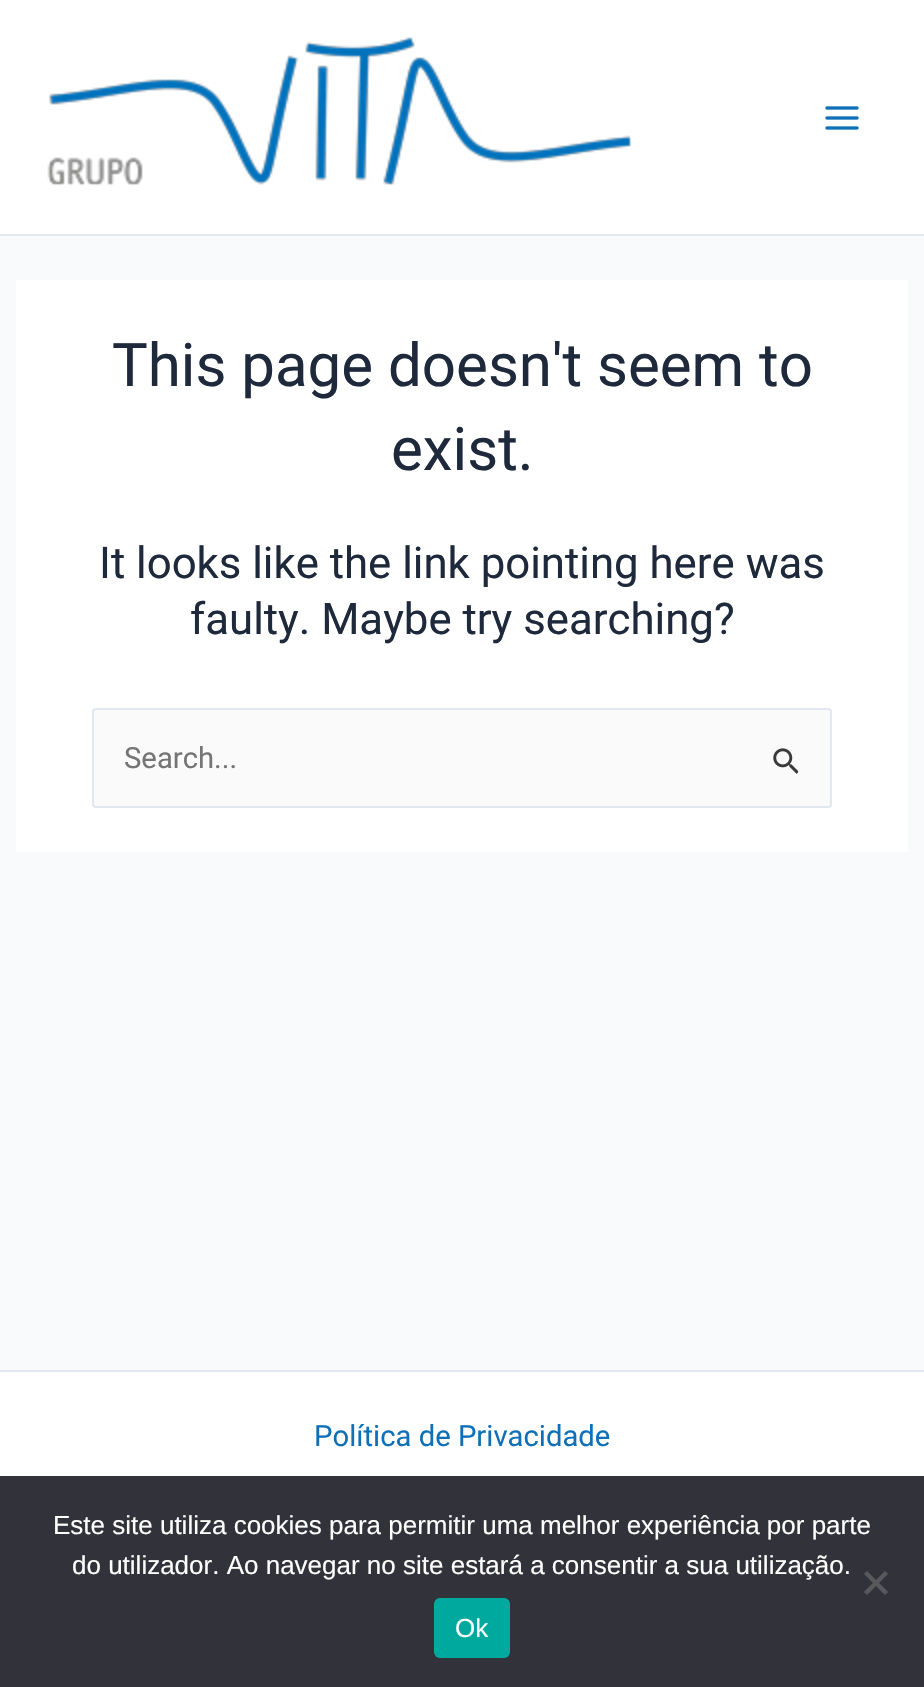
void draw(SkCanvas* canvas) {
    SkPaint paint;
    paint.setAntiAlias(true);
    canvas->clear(0xFFF9FAFB);
    paint.setColor(0xFFFFFFFF);
    canvas->drawRect(SkRect::MakeXYWH(0, 0, 924, 234), paint);
    paint.setColor(0xFFE2E8F0);
    canvas->drawRect(SkRect::MakeXYWH(0, 234, 924, 2), paint);
    canvas->drawImageRect(SkImages::DeferredFromEncodedData(SkData::MakeFromFileName("img1.png")), SkRect::MakeXYWH(47, 37, 585, 149), SkSamplingOptions());
    canvas->drawImageRect(SkImages::DeferredFromEncodedData(SkData::MakeFromFileName("img2.png")), SkRect::MakeXYWH(825, 106, 34, 24), SkSamplingOptions());
    paint.setColor(0xFFFFFFFF);
    canvas->drawRect(SkRect::MakeXYWH(16, 280, 892, 572), paint);
    SkFont font1(fontMgr->matchFamilyStyle("Roboto", SkFontStyle::Normal()), 60);
    font1.setSubpixel(true);
    paint.setColor(0xFF1E293B);
    canvas->drawString("This page doesn't seem to", 112, 386, font1, paint);
    canvas->drawString("exist.", 391, 470, font1, paint);
    SkFont font2(fontMgr->matchFamilyStyle("Roboto", SkFontStyle::Normal()), 43.75f);
    font2.setSubpixel(true);
    canvas->drawString("It looks like the link pointing here was", 99, 578, font2, paint);
    canvas->drawString("faulty. Maybe try searching?", 190, 634, font2, paint);
    paint.setColor(0xFFFAFAFA);
    canvas->drawRoundRect(SkRect::MakeXYWH(93, 709, 738, 98), 3, 3, paint);
    paint.setStyle(SkPaint::kStroke_Style);
    paint.setStrokeWidth(2);
    paint.setColor(0xFFE2E8F0);
    canvas->drawRoundRect(SkRect::MakeXYWH(93, 709, 738, 98), 3, 3, paint);
    SkFont font3(fontMgr->matchFamilyStyle("Roboto", SkFontStyle::Normal()), 29.25f);
    font3.setSubpixel(true);
    paint.setStyle(SkPaint::kFill_Style);
    paint.setColor(0xFF757575);
    canvas->drawString("Search...", 124, 768, font3, paint);
    canvas->drawImageRect(SkImages::DeferredFromEncodedData(SkData::MakeFromFileName("img3.png")), SkRect::MakeXYWH(773, 748, 25, 26), SkSamplingOptions());
    paint.setColor(0xFFFFFFFF);
    canvas->drawRect(SkRect::MakeXYWH(0, 1372, 924, 104), paint);
    paint.setColor(0xFFE2E8F0);
    canvas->drawRect(SkRect::MakeXYWH(0, 1370, 924, 2), paint);
    paint.setColor(0xFF0F70B7);
    canvas->drawString("Política de Privacidade", 314, 1446, font3, paint);
    paint.setColor(0xFF32323A);
    canvas->drawRect(SkRect::MakeXYWH(0, 1476, 924, 211), paint);
    SkFont font4(fontMgr->matchFamilyStyle("Liberation Sans", SkFontStyle::Normal()), 26);
    font4.setSubpixel(true);
    paint.setColor(0xFFFFFFFF);
    canvas->drawString("Este site utiliza cookies para permitir uma melhor experiência por parte", 53, 1534, font4, paint);
    canvas->drawString("do utilizador. Ao navegar no site estará a consentir a sua utilização.", 72, 1574, font4, paint);
    paint.setColor(0xFF59595D);
    canvas->drawPath(SkPathBuilder().moveTo(885, 1571).lineTo(888, 1574).lineTo(867, 1595).lineTo(864, 1592).close().detach(), paint);
    canvas->drawPath(SkPathBuilder().moveTo(864, 1574).lineTo(867, 1571).lineTo(888, 1592).lineTo(885, 1595).close().detach(), paint);
    paint.setColor(0xFF00A99D);
    canvas->drawRoundRect(SkRect::MakeXYWH(434, 1598, 76, 60), 6, 6, paint);
    paint.setColor(0xFFFFFFFF);
    canvas->drawString("Ok", 455, 1637, font4, paint);
}
